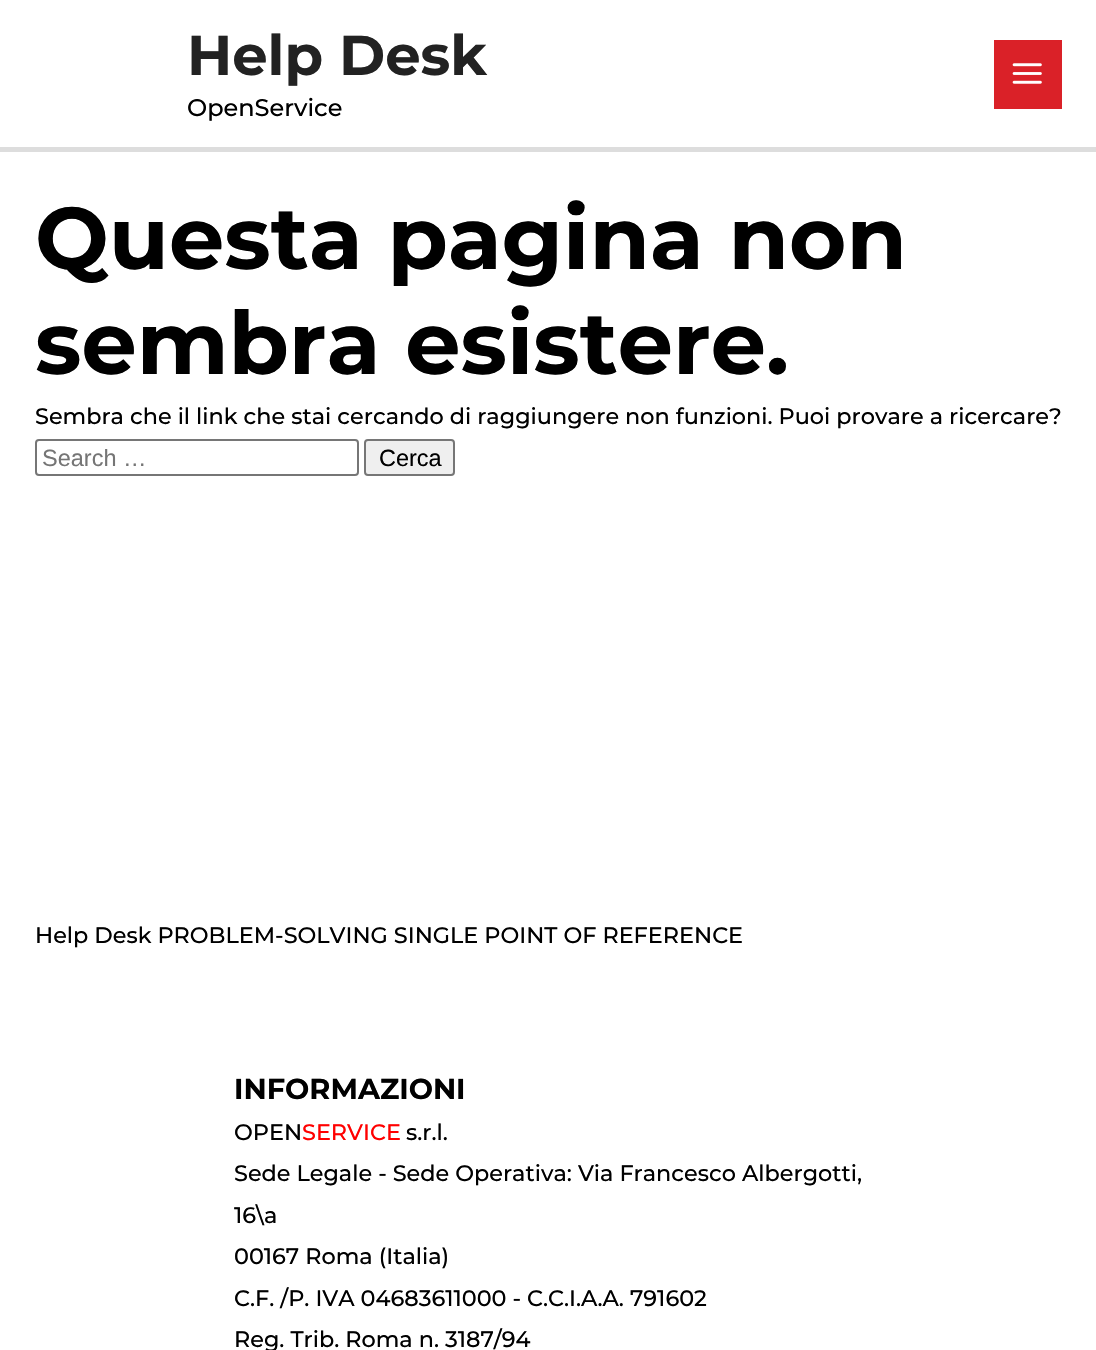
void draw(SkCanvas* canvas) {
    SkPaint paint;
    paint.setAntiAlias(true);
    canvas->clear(0xFFFFFFFF);
    paint.setColor(0xFFDDDDDD);
    canvas->drawRect(SkRect::MakeXYWH(0, 147, 1096, 5), paint);
    SkFont font1(fontMgr->matchFamilyStyle("Montserrat", SkFontStyle::Bold()), 56);
    font1.setSubpixel(true);
    paint.setColor(0xFF222222);
    canvas->drawString("Help Desk", 187, 75, font1, paint);
    SkFont font2(fontMgr->matchFamilyStyle("Montserrat", SkFontStyle(500, SkFontStyle::kNormal_Width, SkFontStyle::kUpright_Slant)), 24);
    font2.setSubpixel(true);
    paint.setColor(0xFF000000);
    canvas->drawString("OpenService", 187, 116, font2, paint);
    paint.setColor(0xFFDA2128);
    canvas->drawRect(SkRect::MakeXYWH(994, 40, 68, 69), paint);
    canvas->drawImageRect(SkImages::DeferredFromEncodedData(SkData::MakeFromFileName("img1.png")), SkRect::MakeXYWH(1012, 63, 30, 21), SkSamplingOptions());
    SkFont font3(fontMgr->matchFamilyStyle("Montserrat", SkFontStyle::Bold()), 87.5f);
    font3.setSubpixel(true);
    paint.setColor(0xFF000000);
    canvas->drawString("Questa pagina non", 35, 269, font3, paint);
    canvas->drawString("sembra esistere.", 35, 374, font3, paint);
    SkFont font4(fontMgr->matchFamilyStyle("Montserrat", SkFontStyle(500, SkFontStyle::kNormal_Width, SkFontStyle::kUpright_Slant)), 22.35f);
    font4.setSubpixel(true);
    canvas->drawString("Sembra che il link che stai cercando di raggiungere non funzioni. Puoi provare a ricercare?", 35, 424, font4, paint);
    paint.setStyle(SkPaint::kStroke_Style);
    paint.setStrokeWidth(2);
    paint.setColor(0xFF767676);
    canvas->drawRoundRect(SkRect::MakeXYWH(36, 440, 322, 35), 3, 3, paint);
    SkFont font5(fontMgr->matchFamilyStyle("Liberation Sans", SkFontStyle::Normal()), 23.5f);
    font5.setSubpixel(true);
    paint.setStyle(SkPaint::kFill_Style);
    paint.setColor(0xFF757575);
    canvas->drawString("Search …", 42, 466, font5, paint);
    paint.setColor(0xFFEFEFEF);
    canvas->drawRoundRect(SkRect::MakeXYWH(365, 440, 89, 35), 3, 3, paint);
    paint.setStyle(SkPaint::kStroke_Style);
    paint.setColor(0xFF767676);
    canvas->drawRoundRect(SkRect::MakeXYWH(365, 440, 89, 35), 3, 3, paint);
    paint.setStyle(SkPaint::kFill_Style);
    paint.setColor(0xFF000000);
    canvas->drawString("Cerca", 379, 466, font5, paint);
    canvas->drawString("Help Desk PROBLEM-SOLVING SINGLE POINT OF REFERENCE", 35, 943, font4, paint);
    SkFont font6(fontMgr->matchFamilyStyle("Montserrat", SkFontStyle::Bold()), 28.75f);
    font6.setSubpixel(true);
    canvas->drawString("INFORMAZIONI", 234, 1099, font6, paint);
    canvas->drawString("OPEN", 234, 1140, font4, paint);
    paint.setColor(0xFFFF0000);
    canvas->drawString("SERVICE", 302, 1140, font4, paint);
    paint.setColor(0xFF000000);
    canvas->drawString("s.r.l.", 406, 1140, font4, paint);
    canvas->drawString("Sede Legale - Sede Operativa: Via Francesco Albergotti,", 234, 1181, font4, paint);
    canvas->drawString("16\\a", 234, 1223, font4, paint);
    canvas->drawString("00167 Roma (Italia)", 234, 1264, font4, paint);
    canvas->drawString("C.F. /P. IVA 04683611000 - C.C.I.A.A. 791602", 234, 1306, font4, paint);
    canvas->drawString("Reg. Trib. Roma n. 3187/94", 234, 1347, font4, paint);
}
